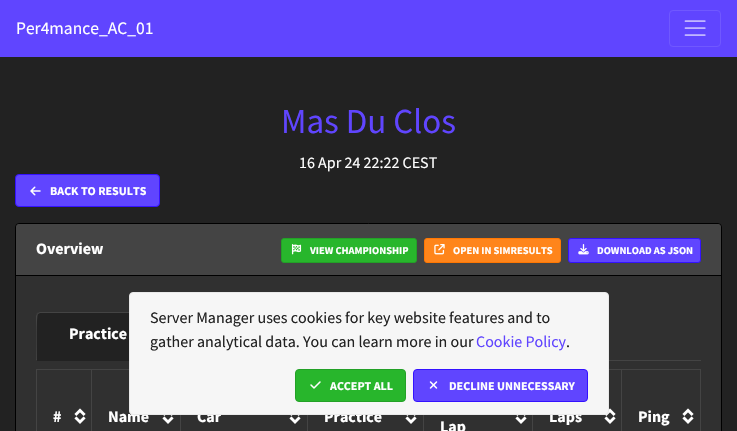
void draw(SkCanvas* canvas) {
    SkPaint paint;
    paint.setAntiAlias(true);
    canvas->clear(0xFF222222);
    paint.setColor(0xFF6045FF);
    canvas->drawRect(SkRect::MakeXYWH(0, 0, 737, 57), paint);
    SkFont font1(fontMgr->matchFamilyStyle("Source Sans Pro", SkFontStyle::Normal()), 17.5f);
    font1.setSubpixel(true);
    paint.setColor(0xFFFFFFFF);
    canvas->drawString("Per4mance_AC_01", 16, 34, font1, paint);
    paint.setStyle(SkPaint::kStroke_Style);
    paint.setStrokeWidth(1);
    paint.setColor(0xFF7058FF);
    canvas->drawRoundRect(SkRect::MakeXYWH(669.5f, 10.5f, 51, 36), 3.5f, 3.5f, paint);
    canvas->drawImageRect(SkImages::DeferredFromEncodedData(SkData::MakeFromFileName("img1.png")), SkRect::MakeXYWH(684, 20, 22, 16), SkSamplingOptions());
    SkFont font2(fontMgr->matchFamilyStyle("Source Sans Pro", SkFontStyle::Normal()), 35);
    font2.setSubpixel(true);
    paint.setStyle(SkPaint::kFill_Style);
    paint.setColor(0xFF6045FF);
    canvas->drawString("Mas Du Clos", 281, 133, font2, paint);
    SkFont font3(fontMgr->matchFamilyStyle("Source Sans Pro", SkFontStyle::Normal()), 16);
    font3.setSubpixel(true);
    paint.setColor(0xFFFFFFFF);
    canvas->drawString("16 Apr 24 22:22 CEST", 299, 168, font3, paint);
    paint.setColor(0xFF6045FF);
    canvas->drawRoundRect(SkRect::MakeXYWH(15.5f, 174.5f, 144, 32), 3.5f, 3.5f, paint);
    paint.setStyle(SkPaint::kStroke_Style);
    paint.setColor(0xFF3412FF);
    canvas->drawRoundRect(SkRect::MakeXYWH(15.5f, 174.5f, 144, 32), 3.5f, 3.5f, paint);
    canvas->drawImageRect(SkImages::DeferredFromEncodedData(SkData::MakeFromFileName("img2.png")), SkRect::MakeXYWH(30, 186, 11, 10), SkSamplingOptions());
    SkFont font4(fontMgr->matchFamilyStyle("Source Sans Pro", SkFontStyle::Bold()), 12);
    font4.setSubpixel(true);
    paint.setStyle(SkPaint::kFill_Style);
    paint.setColor(0xFFFFFFFF);
    canvas->drawString("BACK TO RESULTS", 50, 195, font4, paint);
    paint.setColor(0xFF303030);
    canvas->drawRoundRect(SkRect::MakeXYWH(15.5f, 223.5f, 706, 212), 3.5f, 3.5f, paint);
    paint.setStyle(SkPaint::kStroke_Style);
    paint.setColor(0xFF000000);
    canvas->drawRoundRect(SkRect::MakeXYWH(15.5f, 223.5f, 706, 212), 3.5f, 3.5f, paint);
    paint.setStyle(SkPaint::kFill_Style);
    paint.setColor(0xFF444444);
    canvas->drawPath(SkPathBuilder().moveTo(19, 224).lineTo(718, 224).cubicTo(719.5f, 224, 721, 225.5f, 721, 227).lineTo(721, 276).lineTo(16, 276).lineTo(16, 227).cubicTo(16, 225.5f, 17.5f, 224, 19, 224).close().detach(), paint);
    paint.setColor(0xFF000000);
    canvas->drawRect(SkRect::MakeXYWH(16, 275, 705, 1), paint);
    SkFont font5(fontMgr->matchFamilyStyle("Source Sans Pro", SkFontStyle::Bold()), 16);
    font5.setSubpixel(true);
    paint.setColor(0xFFFFFFFF);
    canvas->drawString("Overview", 36, 254, font5, paint);
    paint.setColor(0xFF28B62C);
    canvas->drawRoundRect(SkRect::MakeXYWH(281.5f, 238.5f, 135, 24), 2.5f, 2.5f, paint);
    paint.setStyle(SkPaint::kStroke_Style);
    paint.setColor(0xFF23A127);
    canvas->drawRoundRect(SkRect::MakeXYWH(281.5f, 238.5f, 135, 24), 2.5f, 2.5f, paint);
    canvas->drawImageRect(SkImages::DeferredFromEncodedData(SkData::MakeFromFileName("img3.png")), SkRect::MakeXYWH(291, 244, 11, 11), SkSamplingOptions());
    SkFont font6(fontMgr->matchFamilyStyle("Source Sans Pro", SkFontStyle::Bold()), 10.5f);
    font6.setSubpixel(true);
    paint.setStyle(SkPaint::kFill_Style);
    paint.setColor(0xFFFFFFFF);
    canvas->drawString("VIEW CHAMPIONSHIP", 310, 254, font6, paint);
    paint.setColor(0xFFFF851B);
    canvas->drawRoundRect(SkRect::MakeXYWH(424.5f, 238.5f, 136, 24), 2.5f, 2.5f, paint);
    paint.setStyle(SkPaint::kStroke_Style);
    paint.setColor(0xFFFF7702);
    canvas->drawRoundRect(SkRect::MakeXYWH(424.5f, 238.5f, 136, 24), 2.5f, 2.5f, paint);
    canvas->drawImageRect(SkImages::DeferredFromEncodedData(SkData::MakeFromFileName("img4.png")), SkRect::MakeXYWH(434, 244, 11, 11), SkSamplingOptions());
    paint.setStyle(SkPaint::kFill_Style);
    paint.setColor(0xFFFFFFFF);
    canvas->drawString("OPEN IN SIMRESULTS", 453, 254, font6, paint);
    paint.setColor(0xFF6045FF);
    canvas->drawRoundRect(SkRect::MakeXYWH(568.5f, 238.5f, 132, 24), 2.5f, 2.5f, paint);
    paint.setStyle(SkPaint::kStroke_Style);
    paint.setColor(0xFF3412FF);
    canvas->drawRoundRect(SkRect::MakeXYWH(568.5f, 238.5f, 132, 24), 2.5f, 2.5f, paint);
    canvas->drawImageRect(SkImages::DeferredFromEncodedData(SkData::MakeFromFileName("img5.png")), SkRect::MakeXYWH(578, 244, 11, 11), SkSamplingOptions());
    paint.setStyle(SkPaint::kFill_Style);
    paint.setColor(0xFFFFFFFF);
    canvas->drawString("DOWNLOAD AS JSON", 597, 254, font6, paint);
    paint.setColor(0xFF444444);
    canvas->drawRect(SkRect::MakeXYWH(609, 360, 92, 1), paint);
    paint.setColor(0xFF222222);
    canvas->drawPath(SkPathBuilder().moveTo(40, 312).lineTo(156, 312).cubicTo(158, 312, 160, 314, 160, 316).lineTo(160, 361).lineTo(36, 361).lineTo(36, 316).cubicTo(36, 314, 38, 312, 40, 312).close().detach(), paint);
    paint.setColor(0xFF444444);
    canvas->drawPath(SkPathBuilder().moveTo(40, 312).lineTo(37, 313).lineTo(38, 314).lineTo(40, 313).lineTo(156, 313).lineTo(158, 314).lineTo(159, 313).lineTo(156, 312).close().detach(), paint);
    canvas->drawPath(SkPathBuilder().moveTo(36, 361).lineTo(37, 360).cubicTo(37, 355, 36, 316, 38, 314).lineTo(37, 313).lineTo(36, 316).close().detach(), paint);
    paint.setColor(0xFFFFFFFF);
    canvas->drawString("Practice", 69, 339, font5, paint);
    canvas->drawImageRect(SkImages::DeferredFromEncodedData(SkData::MakeFromFileName("img6.png")), SkRect::MakeXYWH(74, 408, 12, 16), SkSamplingOptions());
    paint.setColor(0xFF444444);
    canvas->drawRect(SkRect::MakeXYWH(91, 369, 38, 1), paint);
    canvas->drawRect(SkRect::MakeXYWH(91, 369, 1, 62), paint);
    canvas->drawRect(SkRect::MakeXYWH(36, 369, 56, 1), paint);
    canvas->drawRect(SkRect::MakeXYWH(36, 369, 1, 62), paint);
    paint.setColor(0xFFFFFFFF);
    canvas->drawString("#", 53, 422, font5, paint);
    canvas->drawImageRect(SkImages::DeferredFromEncodedData(SkData::MakeFromFileName("img7.png")), SkRect::MakeXYWH(162, 415, 12, 9), SkSamplingOptions());
    canvas->drawString("Name", 108, 422, font5, paint);
    canvas->drawImageRect(SkImages::DeferredFromEncodedData(SkData::MakeFromFileName("img7.png")), SkRect::MakeXYWH(289, 415, 12, 9), SkSamplingOptions());
    paint.setColor(0xFF444444);
    canvas->drawRect(SkRect::MakeXYWH(180, 415, 1, 16), paint);
    paint.setColor(0xFFFFFFFF);
    canvas->drawString("Car", 197, 422, font5, paint);
    canvas->drawImageRect(SkImages::DeferredFromEncodedData(SkData::MakeFromFileName("img7.png")), SkRect::MakeXYWH(405, 415, 12, 9), SkSamplingOptions());
    paint.setColor(0xFF444444);
    canvas->drawRect(SkRect::MakeXYWH(307, 415, 1, 16), paint);
    paint.setColor(0xFFFFFFFF);
    canvas->drawString("Practice", 324, 422, font5, paint);
    canvas->drawImageRect(SkImages::DeferredFromEncodedData(SkData::MakeFromFileName("img6.png")), SkRect::MakeXYWH(604, 408, 12, 16), SkSamplingOptions());
    paint.setColor(0xFF444444);
    canvas->drawRect(SkRect::MakeXYWH(621, 369, 80, 1), paint);
    canvas->drawRect(SkRect::MakeXYWH(621, 369, 1, 62), paint);
    canvas->drawRect(SkRect::MakeXYWH(609, 369, 13, 1), paint);
    canvas->drawRect(SkRect::MakeXYWH(532, 415, 1, 16), paint);
    paint.setColor(0xFFFFFFFF);
    canvas->drawString("Laps", 549, 422, font5, paint);
    canvas->drawImageRect(SkImages::DeferredFromEncodedData(SkData::MakeFromFileName("img6.png")), SkRect::MakeXYWH(682, 408, 12, 16), SkSamplingOptions());
    paint.setColor(0xFF444444);
    canvas->drawRect(SkRect::MakeXYWH(700, 369, 1, 62), paint);
    paint.setColor(0xFFFFFFFF);
    canvas->drawString("Ping", 638, 422, font5, paint);
    canvas->drawImageRect(SkImages::DeferredFromEncodedData(SkData::MakeFromFileName("img7.png")), SkRect::MakeXYWH(515, 415, 12, 9), SkSamplingOptions());
    paint.setColor(0xFF444444);
    canvas->drawRect(SkRect::MakeXYWH(423, 415, 1, 16), paint);
    paint.setColor(0xFFFFFFFF);
    canvas->drawString("Lap", 440, 432, font5, paint);
    paint.setColor(0xFFF6F6F6);
    canvas->drawRoundRect(SkRect::MakeXYWH(129.5f, 292.5f, 479, 122), 3.5f, 3.5f, paint);
    paint.setStyle(SkPaint::kStroke_Style);
    paint.setColor(0xFFE9E9E9);
    canvas->drawRoundRect(SkRect::MakeXYWH(129.5f, 292.5f, 479, 122), 3.5f, 3.5f, paint);
    paint.setStyle(SkPaint::kFill_Style);
    paint.setColor(0xFF222222);
    canvas->drawString("Server Manager uses cookies for key website features and to", 150, 323, font3, paint);
    canvas->drawString("gather analytical data. You can learn more in our", 150, 347, font3, paint);
    paint.setColor(0xFF6045FF);
    canvas->drawString("Cookie Policy", 476, 347, font3, paint);
    paint.setColor(0xFF222222);
    canvas->drawString(".", 566, 347, font3, paint);
    paint.setColor(0xFF28B62C);
    canvas->drawRoundRect(SkRect::MakeXYWH(295.5f, 369.5f, 110, 32), 3.5f, 3.5f, paint);
    paint.setStyle(SkPaint::kStroke_Style);
    paint.setColor(0xFF23A127);
    canvas->drawRoundRect(SkRect::MakeXYWH(295.5f, 369.5f, 110, 32), 3.5f, 3.5f, paint);
    canvas->drawImageRect(SkImages::DeferredFromEncodedData(SkData::MakeFromFileName("img8.png")), SkRect::MakeXYWH(310, 381, 11, 8), SkSamplingOptions());
    paint.setStyle(SkPaint::kFill_Style);
    paint.setColor(0xFFFFFFFF);
    canvas->drawString("ACCEPT ALL", 330, 390, font4, paint);
    paint.setColor(0xFF6045FF);
    canvas->drawRoundRect(SkRect::MakeXYWH(413.5f, 369.5f, 174, 32), 3.5f, 3.5f, paint);
    paint.setStyle(SkPaint::kStroke_Style);
    paint.setColor(0xFF3412FF);
    canvas->drawRoundRect(SkRect::MakeXYWH(413.5f, 369.5f, 174, 32), 3.5f, 3.5f, paint);
    canvas->drawImageRect(SkImages::DeferredFromEncodedData(SkData::MakeFromFileName("img9.png")), SkRect::MakeXYWH(429, 381, 9, 8), SkSamplingOptions());
    paint.setStyle(SkPaint::kFill_Style);
    paint.setColor(0xFFFFFFFF);
    canvas->drawString("DECLINE UNNECESSARY", 449, 390, font4, paint);
}
